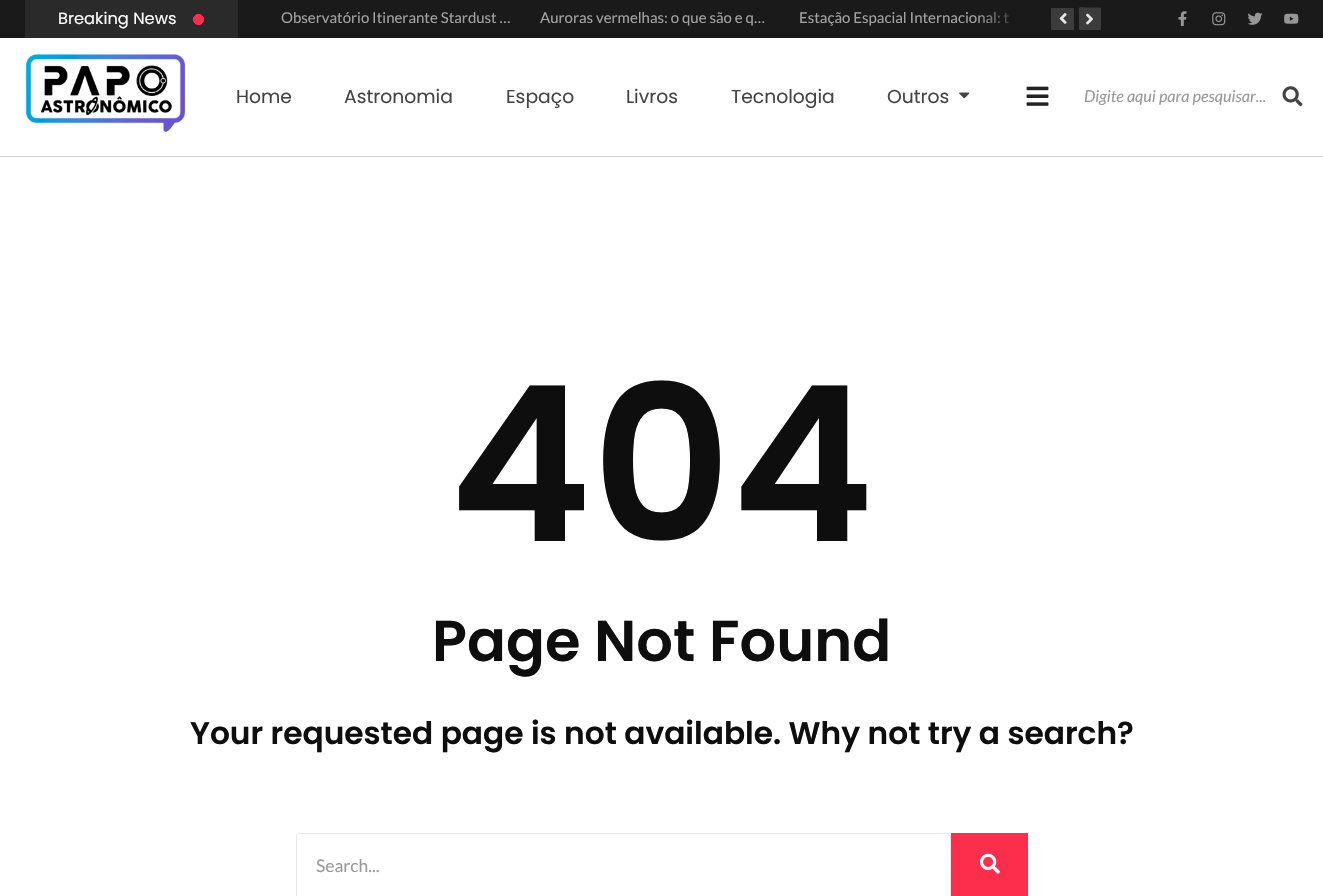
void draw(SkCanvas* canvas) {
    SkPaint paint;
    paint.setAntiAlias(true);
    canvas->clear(0xFFFFFFFF);
    paint.setColor(0xFF1A1A1A);
    canvas->drawRect(SkRect::MakeXYWH(0, 0, 1323, 38), paint);
    paint.setColor(0xFF2A2A2A);
    canvas->drawRect(SkRect::MakeXYWH(25, 0, 213, 38), paint);
    SkFont font1(fontMgr->matchFamilyStyle("Poppins", SkFontStyle::Normal()), 16.25f);
    font1.setSubpixel(true);
    paint.setColor(0xFFFFFFFF);
    canvas->drawString("Breaking News", 58, 24, font1, paint);
    paint.setColor(0xFFFD2E4C);
    canvas->drawCircle(198.5f, 19.5f, 5, paint);
    paint.setStyle(SkPaint::kStroke_Style);
    paint.setStrokeWidth(1);
    canvas->drawCircle(198.5f, 19.5f, 5, paint);
    canvas->drawCircle(198.5f, 19.5f, 5, paint);
    SkFont font2(fontMgr->matchFamilyStyle("Lato", SkFontStyle::Normal()), 15);
    font2.setSubpixel(true);
    paint.setStyle(SkPaint::kFill_Style);
    paint.setColor(0xFFA2A2A2);
    canvas->drawString("Observatório Itinerante Stardust …", 281, 23, font2, paint);
    canvas->drawString("Auroras vermelhas: o que são e q…", 540, 23, font2, paint);
    canvas->drawString("Estação Espacial Internacional: t", 799, 23, font2, paint);
    {
        const SkColor colors[] = {0x001A1A1A, 0xFF1A1A1A};
        const float stops[] = {0, 1};
        const SkPoint ends[] = {{976, 19}, {1026, 19}};
        paint.setShader(SkGradientShader::MakeLinear(ends, colors, stops, 2, SkTileMode::kClamp));
        paint.setAlpha(255);
    }
    canvas->drawRect(SkRect::MakeXYWH(978, 11, 31, 13), paint);
    paint.setShader(nullptr);
    paint.setColor(0xFF3C3C3C);
    canvas->drawRoundRect(SkRect::MakeXYWH(1051, 8, 23, 22), 1, 1, paint);
    canvas->drawImageRect(SkImages::DeferredFromEncodedData(SkData::MakeFromFileName("img1.png")), SkRect::MakeXYWH(1059, 13, 8, 11), SkSamplingOptions());
    canvas->save();
    canvas->clipRect(SkRect::MakeXYWH(238, 0, 863, 38));
    canvas->drawPath(SkPathBuilder().moveTo(1100, 30).lineTo(1080, 30).lineTo(1079, 29.5f).lineTo(1079, 19).cubicTo(1079, 4.5f, 1076, 7.5f, 1090, 7.5f).lineTo(1096.5f, 7.5f).cubicTo(1103.5f, 7.5f, 1101.5f, 8, 1101.5f, 15.5f).lineTo(1101.5f, 25.5f).cubicTo(1101.5f, 26, 1102, 30, 1100, 30).close().detach(), paint);
    canvas->restore();
    canvas->drawImageRect(SkImages::DeferredFromEncodedData(SkData::MakeFromFileName("img2.png")), SkRect::MakeXYWH(1086, 13, 7, 12), SkSamplingOptions());
    canvas->drawImageRect(SkImages::DeferredFromEncodedData(SkData::MakeFromFileName("img3.png")), SkRect::MakeXYWH(1178, 11, 9, 15), SkSamplingOptions());
    canvas->drawImageRect(SkImages::DeferredFromEncodedData(SkData::MakeFromFileName("img4.png")), SkRect::MakeXYWH(1212, 12, 14, 14), SkSamplingOptions());
    canvas->drawImageRect(SkImages::DeferredFromEncodedData(SkData::MakeFromFileName("img5.png")), SkRect::MakeXYWH(1248, 12, 15, 13), SkSamplingOptions());
    canvas->drawImageRect(SkImages::DeferredFromEncodedData(SkData::MakeFromFileName("img6.png")), SkRect::MakeXYWH(1284, 13, 15, 11), SkSamplingOptions());
    paint.setColor(0xFFCFCFCF);
    canvas->drawRect(SkRect::MakeXYWH(0, 156, 1323, 1), paint);
    canvas->drawImageRect(SkImages::DeferredFromEncodedData(SkData::MakeFromFileName("img7.png")), SkRect::MakeXYWH(25, 54, 161, 78), SkSamplingOptions());
    SkFont font3(fontMgr->matchFamilyStyle("Poppins", SkFontStyle::Normal()), 18.75f);
    font3.setSubpixel(true);
    paint.setColor(0xFF444444);
    canvas->drawString("Home", 236, 103, font3, paint);
    canvas->drawString("Astronomia", 344, 103, font3, paint);
    canvas->drawString("Espaço", 506, 103, font3, paint);
    canvas->drawString("Livros", 626, 103, font3, paint);
    canvas->drawString("Tecnologia", 731, 103, font3, paint);
    canvas->drawString("Outros", 887, 103, font3, paint);
    canvas->drawImageRect(SkImages::DeferredFromEncodedData(SkData::MakeFromFileName("img8.png")), SkRect::MakeXYWH(959, 92, 11, 7), SkSamplingOptions());
    canvas->drawImageRect(SkImages::DeferredFromEncodedData(SkData::MakeFromFileName("img9.png")), SkRect::MakeXYWH(1026, 86, 23, 20), SkSamplingOptions());
    SkFont font4(fontMgr->matchFamilyStyle("Lato", SkFontStyle::Italic()), 16.25f);
    font4.setSubpixel(true);
    paint.setColor(0xFF999999);
    canvas->drawString("Digite aqui para pesquisar...", 1084, 102, font4, paint);
    canvas->drawImageRect(SkImages::DeferredFromEncodedData(SkData::MakeFromFileName("img10.png")), SkRect::MakeXYWH(1282, 86, 21, 21), SkSamplingOptions());
    SkFont font5(fontMgr->matchFamilyStyle("Poppins", SkFontStyle(600, SkFontStyle::kNormal_Width, SkFontStyle::kUpright_Slant)), 216);
    font5.setSubpixel(true);
    paint.setColor(0xFF0E0E0E);
    canvas->drawString("404", 449, 541, font5, paint);
    SkFont font6(fontMgr->matchFamilyStyle("Poppins", SkFontStyle(600, SkFontStyle::kNormal_Width, SkFontStyle::kUpright_Slant)), 57.5f);
    font6.setSubpixel(true);
    canvas->drawString("Page Not Found", 432, 661, font6, paint);
    SkFont font7(fontMgr->matchFamilyStyle("Poppins", SkFontStyle(600, SkFontStyle::kNormal_Width, SkFontStyle::kUpright_Slant)), 31.25f);
    font7.setSubpixel(true);
    canvas->drawString("Your requested page is not available. Why not try a search?", 190, 744, font7, paint);
    paint.setStyle(SkPaint::kStroke_Style);
    paint.setColor(0xFFE8E8E8);
    canvas->drawRoundRect(SkRect::MakeXYWH(296.5f, 833.5f, 654, 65), 2, 2, paint);
    SkFont font8(fontMgr->matchFamilyStyle("Lato", SkFontStyle::Normal()), 17.5f);
    font8.setSubpixel(true);
    paint.setStyle(SkPaint::kFill_Style);
    paint.setColor(0xFF999999);
    canvas->drawString("Search...", 316, 872, font8, paint);
    paint.setColor(0xFFFD2E4C);
    canvas->drawRect(SkRect::MakeXYWH(951, 833, 77, 63), paint);
    canvas->drawImageRect(SkImages::DeferredFromEncodedData(SkData::MakeFromFileName("img11.png")), SkRect::MakeXYWH(980, 853, 20, 21), SkSamplingOptions());
}
